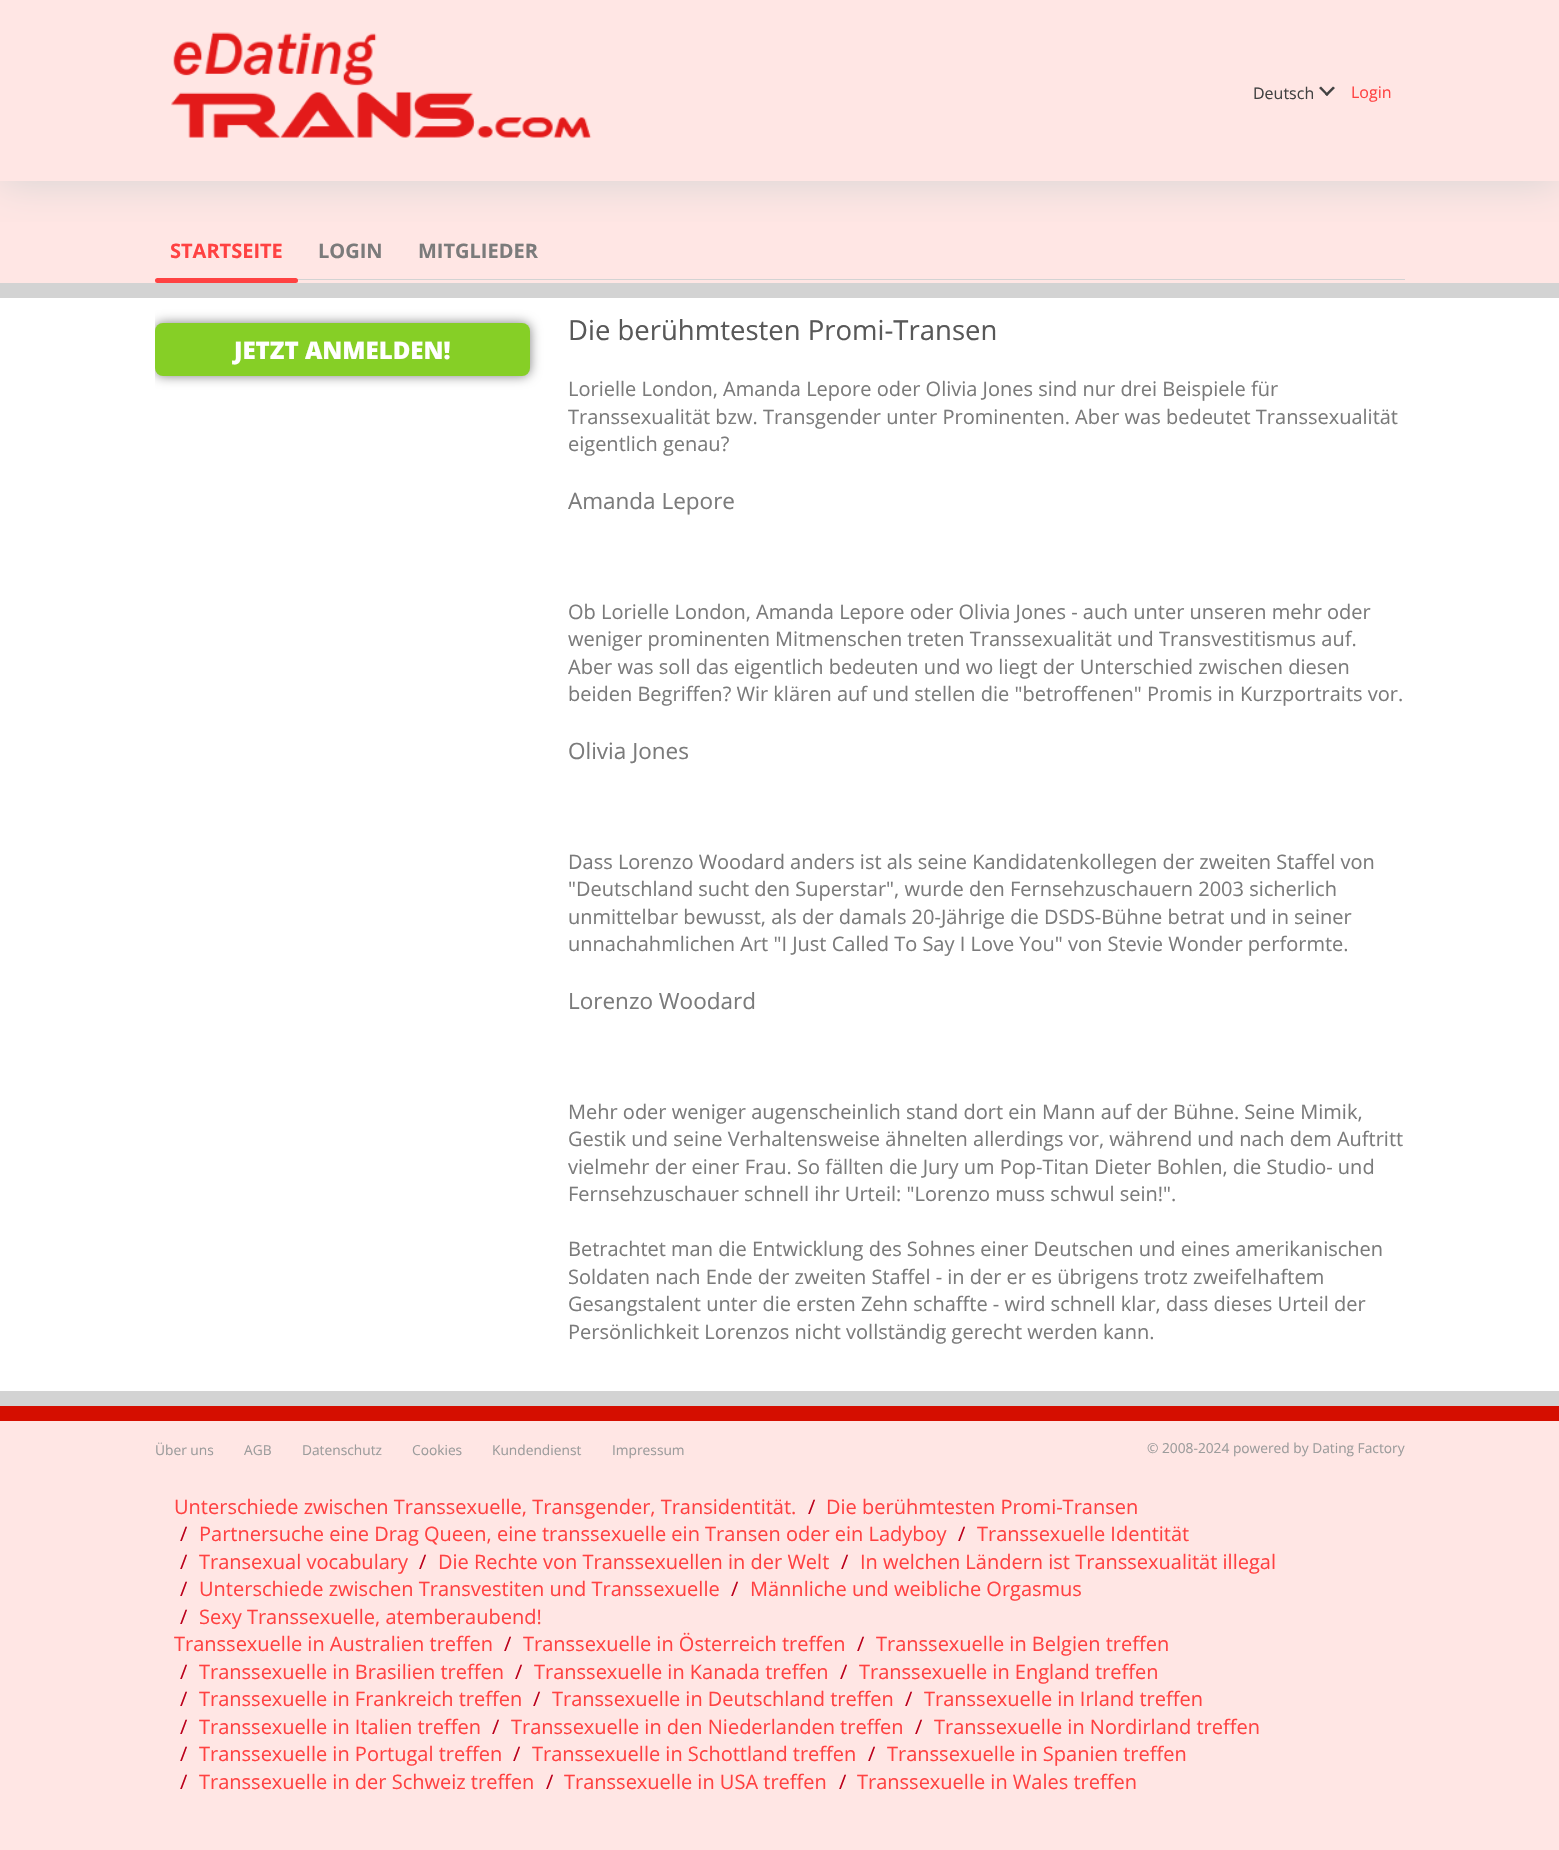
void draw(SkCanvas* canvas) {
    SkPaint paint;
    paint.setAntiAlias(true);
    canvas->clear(0xFFFFE6E4);
    canvas->save();
    canvas->clipRect(SkRect::MakeXYWH(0, 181, 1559, 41));
    paint.setColor(0xFFD3D3D3);
    paint.setMaskFilter(SkMaskFilter::MakeBlur(kNormal_SkBlurStyle, 20));
    canvas->drawRect(SkRect::MakeXYWH(0, 0, 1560, 181), paint);
    paint.setMaskFilter(nullptr);
    canvas->restore();
    canvas->drawImageRect(SkImages::DeferredFromEncodedData(SkData::MakeFromFileName("img1.png")), SkRect::MakeXYWH(171, 32, 421, 106), SkSamplingOptions());
    SkFont font1(fontMgr->matchFamilyStyle("Open Sans", SkFontStyle::Normal()), 16);
    font1.setSubpixel(true);
    paint.setColor(0xFF424242);
    canvas->drawString("Deutsch", 1253, 99, font1, paint);
    canvas->drawPath(SkPathBuilder().moveTo(1333, 86.5f).lineTo(1335, 88).lineTo(1327, 96).lineTo(1325, 94.5f).close().detach(), paint);
    canvas->drawPath(SkPathBuilder().moveTo(1321, 86.5f).lineTo(1328.5f, 94.5f).lineTo(1327, 96).lineTo(1319, 88).close().detach(), paint);
    paint.setColor(0xFFFF4242);
    canvas->drawString("Login", 1351, 98, font1, paint);
    paint.setColor(0xFFD3D3D3);
    canvas->drawRect(SkRect::MakeXYWH(155, 279, 1250, 1), paint);
    SkFont font2(fontMgr->matchFamilyStyle("Open Sans", SkFontStyle::Bold()), 20);
    font2.setSubpixel(true);
    paint.setColor(0xFFFF4242);
    canvas->drawString("STARTSEITE", 170, 258, font2, paint);
    canvas->drawRoundRect(SkRect::MakeXYWH(155, 278, 143, 5), 2.5f, 2.5f, paint);
    paint.setColor(0xFF7B7B7B);
    canvas->drawString("LOGIN", 318, 258, font2, paint);
    canvas->drawString("MITGLIEDER", 418, 258, font2, paint);
    paint.setColor(0xFFFFFFFF);
    canvas->drawRect(SkRect::MakeXYWH(0, 298, 1559, 1093), paint);
    paint.setColor(0xFFD3D3D3);
    canvas->drawRect(SkRect::MakeXYWH(0, 283, 1559, 15), paint);
    canvas->drawRect(SkRect::MakeXYWH(0, 1391, 1559, 15), paint);
    canvas->save();
    canvas->clipPath(SkPathBuilder().moveTo(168, 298).lineTo(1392, 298).cubicTo(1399, 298, 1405, 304, 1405, 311).lineTo(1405, 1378).cubicTo(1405, 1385, 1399, 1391, 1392, 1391).lineTo(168, 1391).cubicTo(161, 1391, 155, 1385, 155, 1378).lineTo(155, 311).cubicTo(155, 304, 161, 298, 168, 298).close().detach(), true);
    paint.setColor(0x80000000);
    paint.setMaskFilter(SkMaskFilter::MakeBlur(kNormal_SkBlurStyle, 6));
    canvas->drawRoundRect(SkRect::MakeXYWH(155, 323, 375, 53), 8, 8, paint);
    paint.setMaskFilter(nullptr);
    canvas->restore();
    paint.setColor(0xFF86CF26);
    canvas->drawRoundRect(SkRect::MakeXYWH(155, 323, 375, 53), 8, 8, paint);
    SkFont font3(fontMgr->matchFamilyStyle("Open Sans", SkFontStyle(800, SkFontStyle::kNormal_Width, SkFontStyle::kUpright_Slant)), 24);
    font3.setSubpixel(true);
    paint.setColor(0xFFFFFFFF);
    canvas->drawString("JETZT ANMELDEN!", 234, 359, font3, paint);
    SkFont font4(fontMgr->matchFamilyStyle("Open Sans", SkFontStyle::Normal()), 27.5f);
    font4.setSubpixel(true);
    paint.setColor(0xFF585858);
    canvas->drawString("Die berühmtesten Promi-Transen", 568, 340, font4, paint);
    SkFont font5(fontMgr->matchFamilyStyle("Open Sans", SkFontStyle::Normal()), 20);
    font5.setSubpixel(true);
    paint.setColor(0xFF7B7B7B);
    canvas->drawString("Lorielle London, Amanda Lepore oder Olivia Jones sind nur drei Beispiele für", 568, 396, font5, paint);
    canvas->drawString("Transsexualität bzw. Transgender unter Prominenten. Aber was bedeutet Transsexualität", 568, 424, font5, paint);
    canvas->drawString("eigentlich genau?", 568, 451, font5, paint);
    SkFont font6(fontMgr->matchFamilyStyle("Open Sans", SkFontStyle::Normal()), 22.5f);
    font6.setSubpixel(true);
    canvas->drawString("Amanda Lepore", 568, 509, font6, paint);
    canvas->drawString("Ob Lorielle London, Amanda Lepore oder Olivia Jones - auch unter unseren mehr oder", 568, 619, font5, paint);
    canvas->drawString("weniger prominenten Mitmenschen treten Transsexualität und Transvestitismus auf.", 568, 646, font5, paint);
    canvas->drawString("Aber was soll das eigentlich bedeuten und wo liegt der Unterschied zwischen diesen", 568, 674, font5, paint);
    canvas->drawString("beiden Begriffen? Wir klären auf und stellen die \"betroffenen\" Promis in Kurzportraits vor.", 568, 701, font5, paint);
    canvas->drawString("Olivia Jones", 568, 759, font6, paint);
    canvas->drawString("Dass Lorenzo Woodard anders ist als seine Kandidatenkollegen der zweiten Staffel von", 568, 869, font5, paint);
    canvas->drawString("\"Deutschland sucht den Superstar\", wurde den Fernsehzuschauern 2003 sicherlich", 568, 896, font5, paint);
    canvas->drawString("unmittelbar bewusst, als der damals 20-Jährige die DSDS-Bühne betrat und in seiner", 568, 924, font5, paint);
    canvas->drawString("unnachahmlichen Art \"I Just Called To Say I Love You\" von Stevie Wonder performte.", 568, 951, font5, paint);
    canvas->drawString("Lorenzo Woodard", 568, 1009, font6, paint);
    canvas->drawString("Mehr oder weniger augenscheinlich stand dort ein Mann auf der Bühne. Seine Mimik,", 568, 1119, font5, paint);
    canvas->drawString("Gestik und seine Verhaltensweise ähnelten allerdings vor, während und nach dem Auftritt", 568, 1146, font5, paint);
    canvas->drawString("vielmehr der einer Frau. So fällten die Jury um Pop-Titan Dieter Bohlen, die Studio- und", 568, 1174, font5, paint);
    canvas->drawString("Fernsehzuschauer schnell ihr Urteil: \"Lorenzo muss schwul sein!\".", 568, 1201, font5, paint);
    canvas->drawString("Betrachtet man die Entwicklung des Sohnes einer Deutschen und eines amerikanischen", 568, 1256, font5, paint);
    canvas->drawString("Soldaten nach Ende der zweiten Staffel - in der er es übrigens trotz zweifelhaftem", 568, 1284, font5, paint);
    canvas->drawString("Gesangstalent unter die ersten Zehn schaffte - wird schnell klar, dass dieses Urteil der", 568, 1311, font5, paint);
    canvas->drawString("Persönlichkeit Lorenzos nicht vollständig gerecht werden kann.", 568, 1339, font5, paint);
    paint.setColor(0xFFD50E00);
    canvas->drawRect(SkRect::MakeXYWH(0, 1406, 1559, 15), paint);
    SkFont font7(fontMgr->matchFamilyStyle("Open Sans", SkFontStyle::Normal()), 13.75f);
    font7.setSubpixel(true);
    paint.setColor(0xFF9C9C9C);
    canvas->drawString("Über uns", 155, 1455, font7, paint);
    canvas->drawString("AGB", 244, 1455, font7, paint);
    canvas->drawString("Datenschutz", 302, 1455, font7, paint);
    canvas->drawString("Cookies", 412, 1455, font7, paint);
    canvas->drawString("Kundendienst", 492, 1455, font7, paint);
    canvas->drawString("Impressum", 612, 1455, font7, paint);
    canvas->drawString("© 2008-2024 powered by Dating Factory", 1147, 1453, font7, paint);
    paint.setColor(0xFFFF4242);
    canvas->drawString("Unterschiede zwischen Transsexuelle, Transgender, Transidentität.", 174, 1514, font5, paint);
    paint.setColor(0xFFBC001B);
    canvas->drawString("/", 808, 1514, font5, paint);
    paint.setColor(0xFFFF4242);
    canvas->drawString("Die berühmtesten Promi-Transen", 826, 1514, font5, paint);
    paint.setColor(0xFFBC001B);
    canvas->drawString("/", 180, 1541, font5, paint);
    paint.setColor(0xFFFF4242);
    canvas->drawString("Partnersuche eine Drag Queen, eine transsexuelle ein Transen oder ein Ladyboy", 199, 1541, font5, paint);
    paint.setColor(0xFFBC001B);
    canvas->drawString("/", 958, 1541, font5, paint);
    paint.setColor(0xFFFF4242);
    canvas->drawString("Transsexuelle Identität", 977, 1541, font5, paint);
    paint.setColor(0xFFBC001B);
    canvas->drawString("/", 180, 1569, font5, paint);
    paint.setColor(0xFFFF4242);
    canvas->drawString("Transexual vocabulary", 199, 1569, font5, paint);
    paint.setColor(0xFFBC001B);
    canvas->drawString("/", 419, 1569, font5, paint);
    paint.setColor(0xFFFF4242);
    canvas->drawString("Die Rechte von Transsexuellen in der Welt", 438, 1569, font5, paint);
    paint.setColor(0xFFBC001B);
    canvas->drawString("/", 841, 1569, font5, paint);
    paint.setColor(0xFFFF4242);
    canvas->drawString("In welchen Ländern ist Transsexualität illegal", 860, 1569, font5, paint);
    paint.setColor(0xFFBC001B);
    canvas->drawString("/", 180, 1596, font5, paint);
    paint.setColor(0xFFFF4242);
    canvas->drawString("Unterschiede zwischen Transvestiten und Transsexuelle", 199, 1596, font5, paint);
    paint.setColor(0xFFBC001B);
    canvas->drawString("/", 731, 1596, font5, paint);
    paint.setColor(0xFFFF4242);
    canvas->drawString("Männliche und weibliche Orgasmus", 750, 1596, font5, paint);
    paint.setColor(0xFFBC001B);
    canvas->drawString("/", 180, 1624, font5, paint);
    paint.setColor(0xFFFF4242);
    canvas->drawString("Sexy Transsexuelle, atemberaubend!", 199, 1624, font5, paint);
    canvas->drawString("Transsexuelle in Australien treffen", 174, 1651, font5, paint);
    paint.setColor(0xFFBC001B);
    canvas->drawString("/", 504, 1651, font5, paint);
    paint.setColor(0xFFFF4242);
    canvas->drawString("Transsexuelle in Österreich treffen", 523, 1651, font5, paint);
    paint.setColor(0xFFBC001B);
    canvas->drawString("/", 857, 1651, font5, paint);
    paint.setColor(0xFFFF4242);
    canvas->drawString("Transsexuelle in Belgien treffen", 876, 1651, font5, paint);
    paint.setColor(0xFFBC001B);
    canvas->drawString("/", 180, 1679, font5, paint);
    paint.setColor(0xFFFF4242);
    canvas->drawString("Transsexuelle in Brasilien treffen", 199, 1679, font5, paint);
    paint.setColor(0xFFBC001B);
    canvas->drawString("/", 515, 1679, font5, paint);
    paint.setColor(0xFFFF4242);
    canvas->drawString("Transsexuelle in Kanada treffen", 534, 1679, font5, paint);
    paint.setColor(0xFFBC001B);
    canvas->drawString("/", 840, 1679, font5, paint);
    paint.setColor(0xFFFF4242);
    canvas->drawString("Transsexuelle in England treffen", 859, 1679, font5, paint);
    paint.setColor(0xFFBC001B);
    canvas->drawString("/", 180, 1706, font5, paint);
    paint.setColor(0xFFFF4242);
    canvas->drawString("Transsexuelle in Frankreich treffen", 199, 1706, font5, paint);
    paint.setColor(0xFFBC001B);
    canvas->drawString("/", 533, 1706, font5, paint);
    paint.setColor(0xFFFF4242);
    canvas->drawString("Transsexuelle in Deutschland treffen", 552, 1706, font5, paint);
    paint.setColor(0xFFBC001B);
    canvas->drawString("/", 905, 1706, font5, paint);
    paint.setColor(0xFFFF4242);
    canvas->drawString("Transsexuelle in Irland treffen", 924, 1706, font5, paint);
    paint.setColor(0xFFBC001B);
    canvas->drawString("/", 180, 1734, font5, paint);
    paint.setColor(0xFFFF4242);
    canvas->drawString("Transsexuelle in Italien treffen", 199, 1734, font5, paint);
    paint.setColor(0xFFBC001B);
    canvas->drawString("/", 492, 1734, font5, paint);
    paint.setColor(0xFFFF4242);
    canvas->drawString("Transsexuelle in den Niederlanden treffen", 511, 1734, font5, paint);
    paint.setColor(0xFFBC001B);
    canvas->drawString("/", 915, 1734, font5, paint);
    paint.setColor(0xFFFF4242);
    canvas->drawString("Transsexuelle in Nordirland treffen", 934, 1734, font5, paint);
    paint.setColor(0xFFBC001B);
    canvas->drawString("/", 180, 1761, font5, paint);
    paint.setColor(0xFFFF4242);
    canvas->drawString("Transsexuelle in Portugal treffen", 199, 1761, font5, paint);
    paint.setColor(0xFFBC001B);
    canvas->drawString("/", 513, 1761, font5, paint);
    paint.setColor(0xFFFF4242);
    canvas->drawString("Transsexuelle in Schottland treffen", 532, 1761, font5, paint);
    paint.setColor(0xFFBC001B);
    canvas->drawString("/", 868, 1761, font5, paint);
    paint.setColor(0xFFFF4242);
    canvas->drawString("Transsexuelle in Spanien treffen", 887, 1761, font5, paint);
    paint.setColor(0xFFBC001B);
    canvas->drawString("/", 180, 1789, font5, paint);
    paint.setColor(0xFFFF4242);
    canvas->drawString("Transsexuelle in der Schweiz treffen", 199, 1789, font5, paint);
    paint.setColor(0xFFBC001B);
    canvas->drawString("/", 546, 1789, font5, paint);
    paint.setColor(0xFFFF4242);
    canvas->drawString("Transsexuelle in USA treffen", 564, 1789, font5, paint);
    paint.setColor(0xFFBC001B);
    canvas->drawString("/", 839, 1789, font5, paint);
    paint.setColor(0xFFFF4242);
    canvas->drawString("Transsexuelle in Wales treffen", 857, 1789, font5, paint);
}
